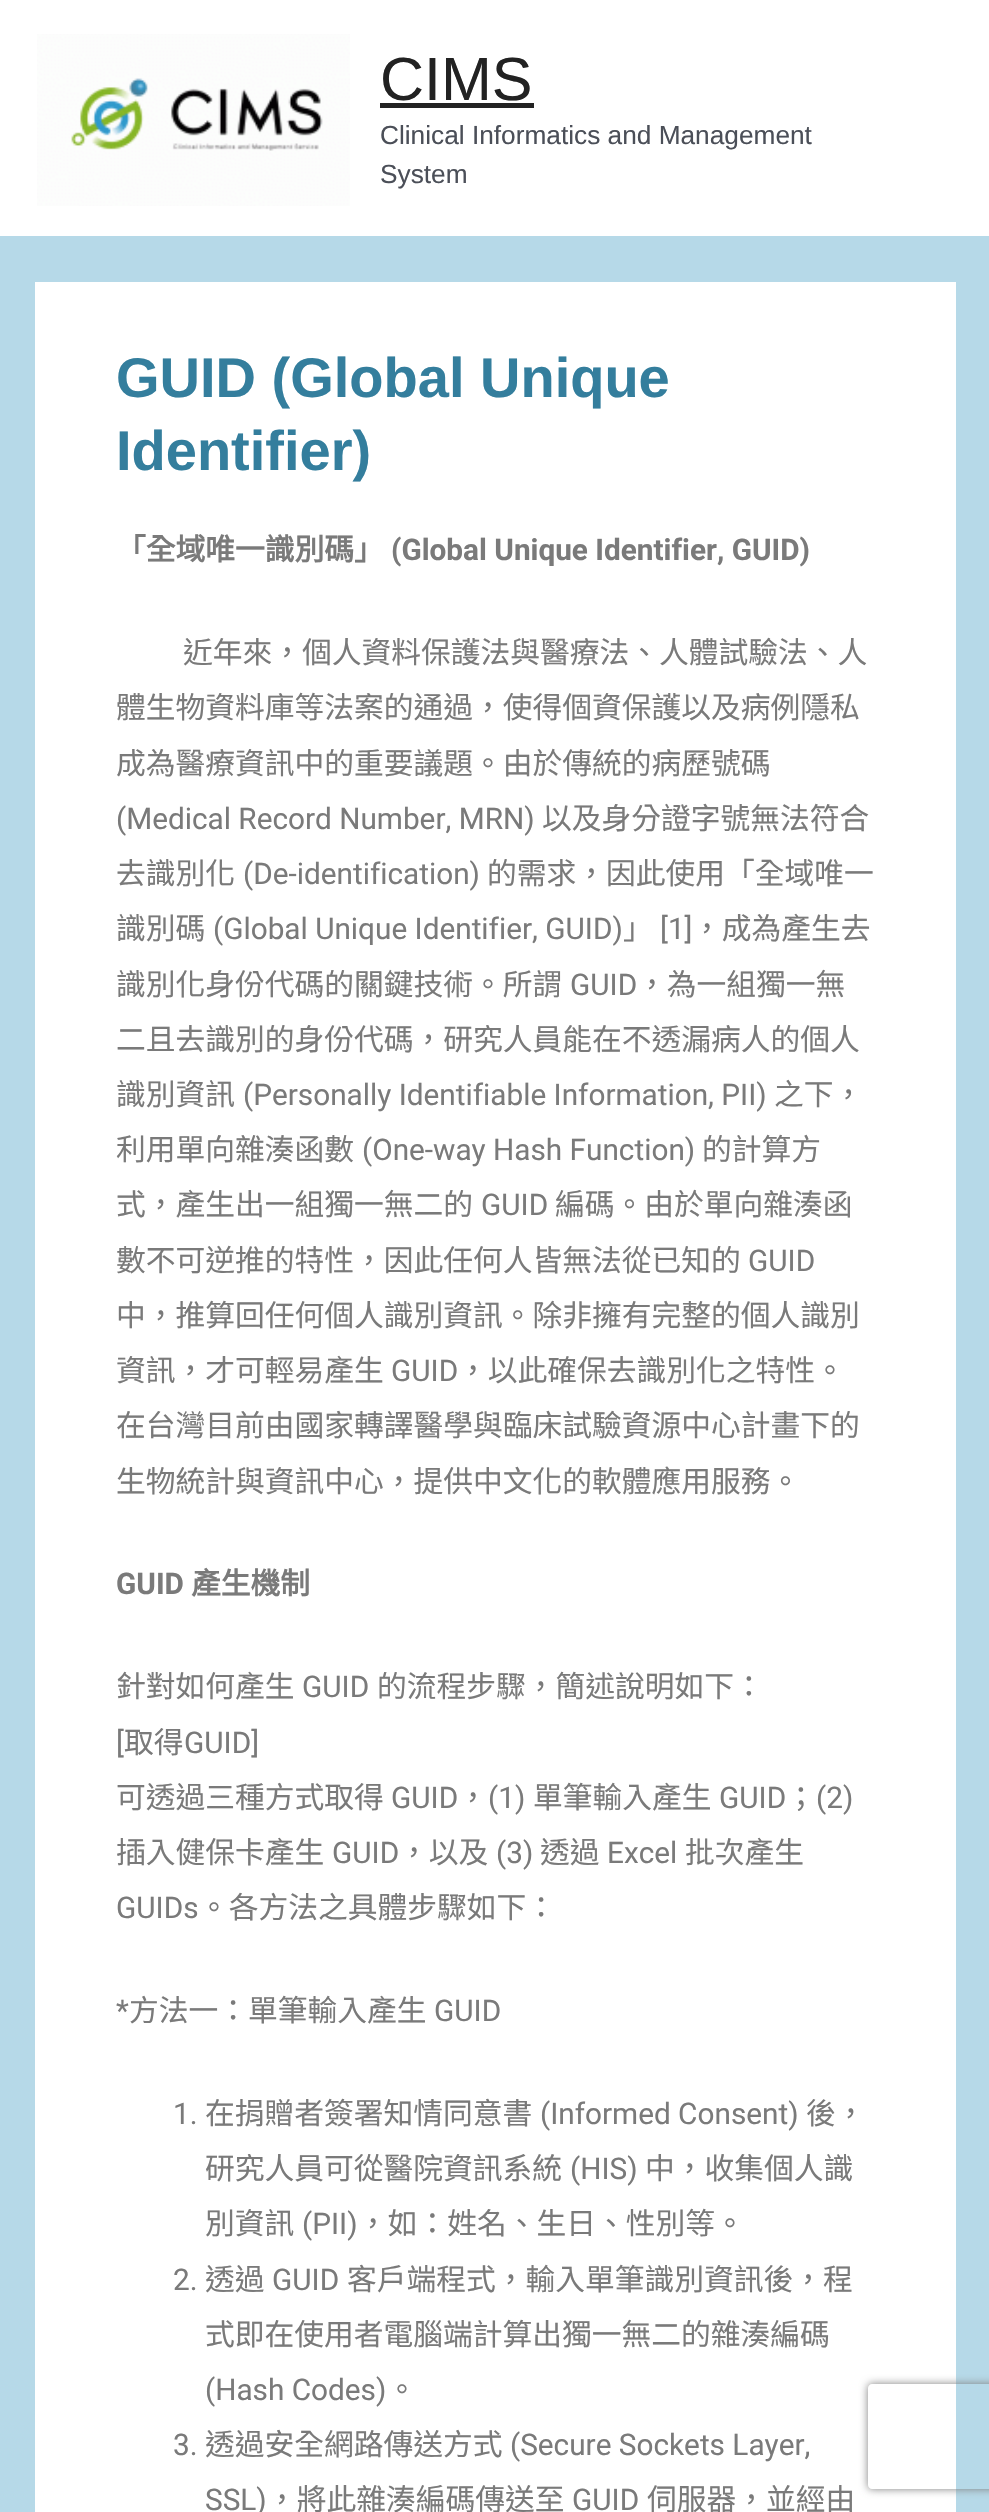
void draw(SkCanvas* canvas) {
    SkPaint paint;
    paint.setAntiAlias(true);
    canvas->clear(0xFFB6D9E8);
    paint.setColor(0xFFFFFFFF);
    canvas->drawRect(SkRect::MakeXYWH(0, 0, 989, 236), paint);
    canvas->drawImageRect(SkImages::DeferredFromEncodedData(SkData::MakeFromFileName("img1.png")), SkRect::MakeXYWH(37, 34, 313, 172), SkSamplingOptions());
    SkFont font1(fontMgr->matchFamilyStyle("Liberation Sans", SkFontStyle::Normal()), 61);
    font1.setSubpixel(true);
    paint.setColor(0xFF222222);
    canvas->drawString("CIMS", 380, 100, font1, paint);
    canvas->drawRect(SkRect::MakeXYWH(380, 103, 154, 5), paint);
    SkFont font2(fontMgr->matchFamilyStyle("Liberation Sans", SkFontStyle::Normal()), 26.25f);
    font2.setSubpixel(true);
    paint.setColor(0xFF4B4F58);
    canvas->drawString("Clinical Informatics and Management", 380, 144, font2, paint);
    canvas->drawString("System", 380, 183, font2, paint);
    paint.setColor(0xFFFFFFFF);
    canvas->drawRect(SkRect::MakeXYWH(35, 282, 921, 2230), paint);
    SkFont font3(fontMgr->matchFamilyStyle("Liberation Sans", SkFontStyle::Bold()), 56);
    font3.setSubpixel(true);
    paint.setColor(0xFF347E9D);
    canvas->drawString("GUID (Global Unique", 116, 397, font3, paint);
    canvas->drawString("Identifier)", 116, 470, font3, paint);
    SkFont font4(fontMgr->matchFamilyStyle("Noto Sans CJK TC", SkFontStyle::Bold()), 29.75f);
    font4.setSubpixel(true);
    paint.setColor(0xFF7A7A7A);
    canvas->drawString("「全域唯一識別碼」", 116, 560, font4, paint);
    SkFont font5(fontMgr->matchFamilyStyle("Roboto", SkFontStyle::Bold()), 29.75f);
    font5.setSubpixel(true);
    canvas->drawString("(Global Unique Identifier, GUID)", 391, 560, font5, paint);
    SkFont font6(fontMgr->matchFamilyStyle("Noto Sans CJK TC", SkFontStyle::Normal()), 29.75f);
    font6.setSubpixel(true);
    canvas->drawString("近年來，個人資料保護法與醫療法、人體試驗法、人", 183, 663, font6, paint);
    canvas->drawString("體生物資料庫等法案的通過，使得個資保護以及病例隱私", 116, 718, font6, paint);
    canvas->drawString("成為醫療資訊中的重要議題。由於傳統的病歷號碼", 116, 774, font6, paint);
    SkFont font7(fontMgr->matchFamilyStyle("Roboto", SkFontStyle::Normal()), 29.75f);
    font7.setSubpixel(true);
    canvas->drawString("(Medical Record Number, MRN)", 116, 829, font7, paint);
    canvas->drawString("以及身分證字號無法符合", 542, 829, font6, paint);
    canvas->drawString("去識別化", 116, 884, font6, paint);
    canvas->drawString("(De-identification)", 243, 884, font7, paint);
    canvas->drawString("的需求，因此使用「全域唯一", 487, 884, font6, paint);
    canvas->drawString("識別碼", 116, 939, font6, paint);
    canvas->drawString("(Global Unique Identifier, GUID)", 213, 939, font7, paint);
    canvas->drawString("」", 623, 939, font6, paint);
    canvas->drawString("[1]", 660, 939, font7, paint);
    canvas->drawString("，成為產生去", 692, 939, font6, paint);
    canvas->drawString("識別化身份代碼的關鍵技術。所謂", 116, 995, font6, paint);
    canvas->drawString("GUID", 570, 995, font7, paint);
    canvas->drawString("，為一組獨一無", 637, 995, font6, paint);
    canvas->drawString("二且去識別的身份代碼，研究人員能在不透漏病人的個人", 116, 1050, font6, paint);
    canvas->drawString("識別資訊", 116, 1105, font6, paint);
    canvas->drawString("(Personally Identifiable Information, PII)", 243, 1105, font7, paint);
    canvas->drawString("之下，", 774, 1105, font6, paint);
    canvas->drawString("利用單向雜湊函數", 116, 1160, font6, paint);
    canvas->drawString("(One-way Hash Function)", 362, 1160, font7, paint);
    canvas->drawString("的計算方", 702, 1160, font6, paint);
    canvas->drawString("式，產生出一組獨一無二的", 116, 1215, font6, paint);
    canvas->drawString("GUID", 481, 1215, font7, paint);
    canvas->drawString("編碼。由於單向雜湊函", 555, 1215, font6, paint);
    canvas->drawString("數不可逆推的特性，因此任何人皆無法從已知的", 116, 1271, font6, paint);
    canvas->drawString("GUID", 748, 1271, font7, paint);
    canvas->drawString("中，推算回任何個人識別資訊。除非擁有完整的個人識別", 116, 1326, font6, paint);
    canvas->drawString("資訊，才可輕易產生", 116, 1381, font6, paint);
    canvas->drawString("GUID", 391, 1381, font7, paint);
    canvas->drawString("，以此確保去識別化之特性。", 458, 1381, font6, paint);
    canvas->drawString("在台灣目前由國家轉譯醫學與臨床試驗資源中心計畫下的", 116, 1436, font6, paint);
    canvas->drawString("生物統計與資訊中心，提供中文化的軟體應用服務。", 116, 1492, font6, paint);
    canvas->drawString("GUID", 116, 1594, font5, paint);
    canvas->drawString("產生機制", 191, 1594, font4, paint);
    canvas->drawString("針對如何產生", 116, 1697, font6, paint);
    canvas->drawString("GUID", 302, 1697, font7, paint);
    canvas->drawString("的流程步驟，簡述說明如下：", 377, 1697, font6, paint);
    canvas->drawString("[", 116, 1753, font7, paint);
    canvas->drawString("取得", 124, 1753, font6, paint);
    canvas->drawString("GUID]", 184, 1753, font7, paint);
    canvas->drawString("可透過三種方式取得", 116, 1808, font6, paint);
    canvas->drawString("GUID", 391, 1808, font7, paint);
    canvas->drawString("，", 458, 1808, font6, paint);
    canvas->drawString("(1)", 488, 1808, font7, paint);
    canvas->drawString("單筆輸入產生", 533, 1808, font6, paint);
    canvas->drawString("GUID", 719, 1808, font7, paint);
    canvas->drawString("；", 786, 1808, font6, paint);
    canvas->drawString("(2)", 816, 1808, font7, paint);
    canvas->drawString("插入健保卡產生", 116, 1863, font6, paint);
    canvas->drawString("GUID", 332, 1863, font7, paint);
    canvas->drawString("，以及", 399, 1863, font6, paint);
    canvas->drawString("(3)", 496, 1863, font7, paint);
    canvas->drawString("透過", 540, 1863, font6, paint);
    canvas->drawString("Excel", 607, 1863, font7, paint);
    canvas->drawString("批次產生", 685, 1863, font6, paint);
    canvas->drawString("GUIDs", 116, 1918, font7, paint);
    canvas->drawString("。各方法之具體步驟如下：", 199, 1918, font6, paint);
    canvas->drawString("*", 116, 2021, font7, paint);
    canvas->drawString("方法一：單筆輸入產生", 129, 2021, font6, paint);
    canvas->drawString("GUID", 434, 2021, font7, paint);
    canvas->drawString("1.", 173, 2124, font7, paint);
    canvas->drawString("在捐贈者簽署知情同意書", 205, 2124, font6, paint);
    canvas->drawString("(Informed Consent)", 540, 2124, font7, paint);
    canvas->drawString("後，", 806, 2124, font6, paint);
    canvas->drawString("研究人員可從醫院資訊系統", 205, 2179, font6, paint);
    canvas->drawString("(HIS)", 570, 2179, font7, paint);
    canvas->drawString("中，收集個人識", 645, 2179, font6, paint);
    canvas->drawString("別資訊", 205, 2234, font6, paint);
    canvas->drawString("(PII)", 302, 2234, font7, paint);
    canvas->drawString("，如：姓名、生日、性別等。", 358, 2234, font6, paint);
    canvas->drawString("2.", 173, 2290, font7, paint);
    canvas->drawString("透過", 205, 2290, font6, paint);
    canvas->drawString("GUID", 272, 2290, font7, paint);
    canvas->drawString("客戶端程式，輸入單筆識別資訊後，程", 347, 2290, font6, paint);
    canvas->drawString("式即在使用者電腦端計算出獨一無二的雜湊編碼", 205, 2345, font6, paint);
    canvas->drawString("(Hash Codes)", 205, 2400, font7, paint);
    canvas->drawString("。", 387, 2400, font6, paint);
    canvas->drawString("3.", 173, 2455, font7, paint);
    canvas->drawString("透過安全網路傳送方式", 205, 2455, font6, paint);
    canvas->drawString("(Secure Sockets Layer,", 510, 2455, font7, paint);
    canvas->drawString("SSL)", 205, 2510, font7, paint);
    canvas->drawString("，將此雜湊編碼傳送至", 267, 2510, font6, paint);
    canvas->drawString("GUID", 572, 2510, font7, paint);
    canvas->drawString("伺服器，並經由", 647, 2510, font6, paint);
    canvas->save();
    canvas->clipPath(SkPathBuilder(SkPathFillType::kEvenOdd).moveTo(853, 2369).lineTo(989, 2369).lineTo(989, 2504).lineTo(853, 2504).close().moveTo(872, 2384).lineTo(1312, 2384).cubicTo(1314, 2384, 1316, 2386, 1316, 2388).lineTo(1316, 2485).cubicTo(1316, 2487, 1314, 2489, 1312, 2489).lineTo(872, 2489).cubicTo(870, 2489, 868, 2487, 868, 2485).lineTo(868, 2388).cubicTo(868, 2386, 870, 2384, 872, 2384).close().detach(), true);
    paint.setColor(0xFF808080);
    paint.setMaskFilter(SkMaskFilter::MakeBlur(kNormal_SkBlurStyle, 4.5f));
    canvas->drawRoundRect(SkRect::MakeXYWH(868, 2384, 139, 105), 4, 4, paint);
    paint.setMaskFilter(nullptr);
    canvas->restore();
}
